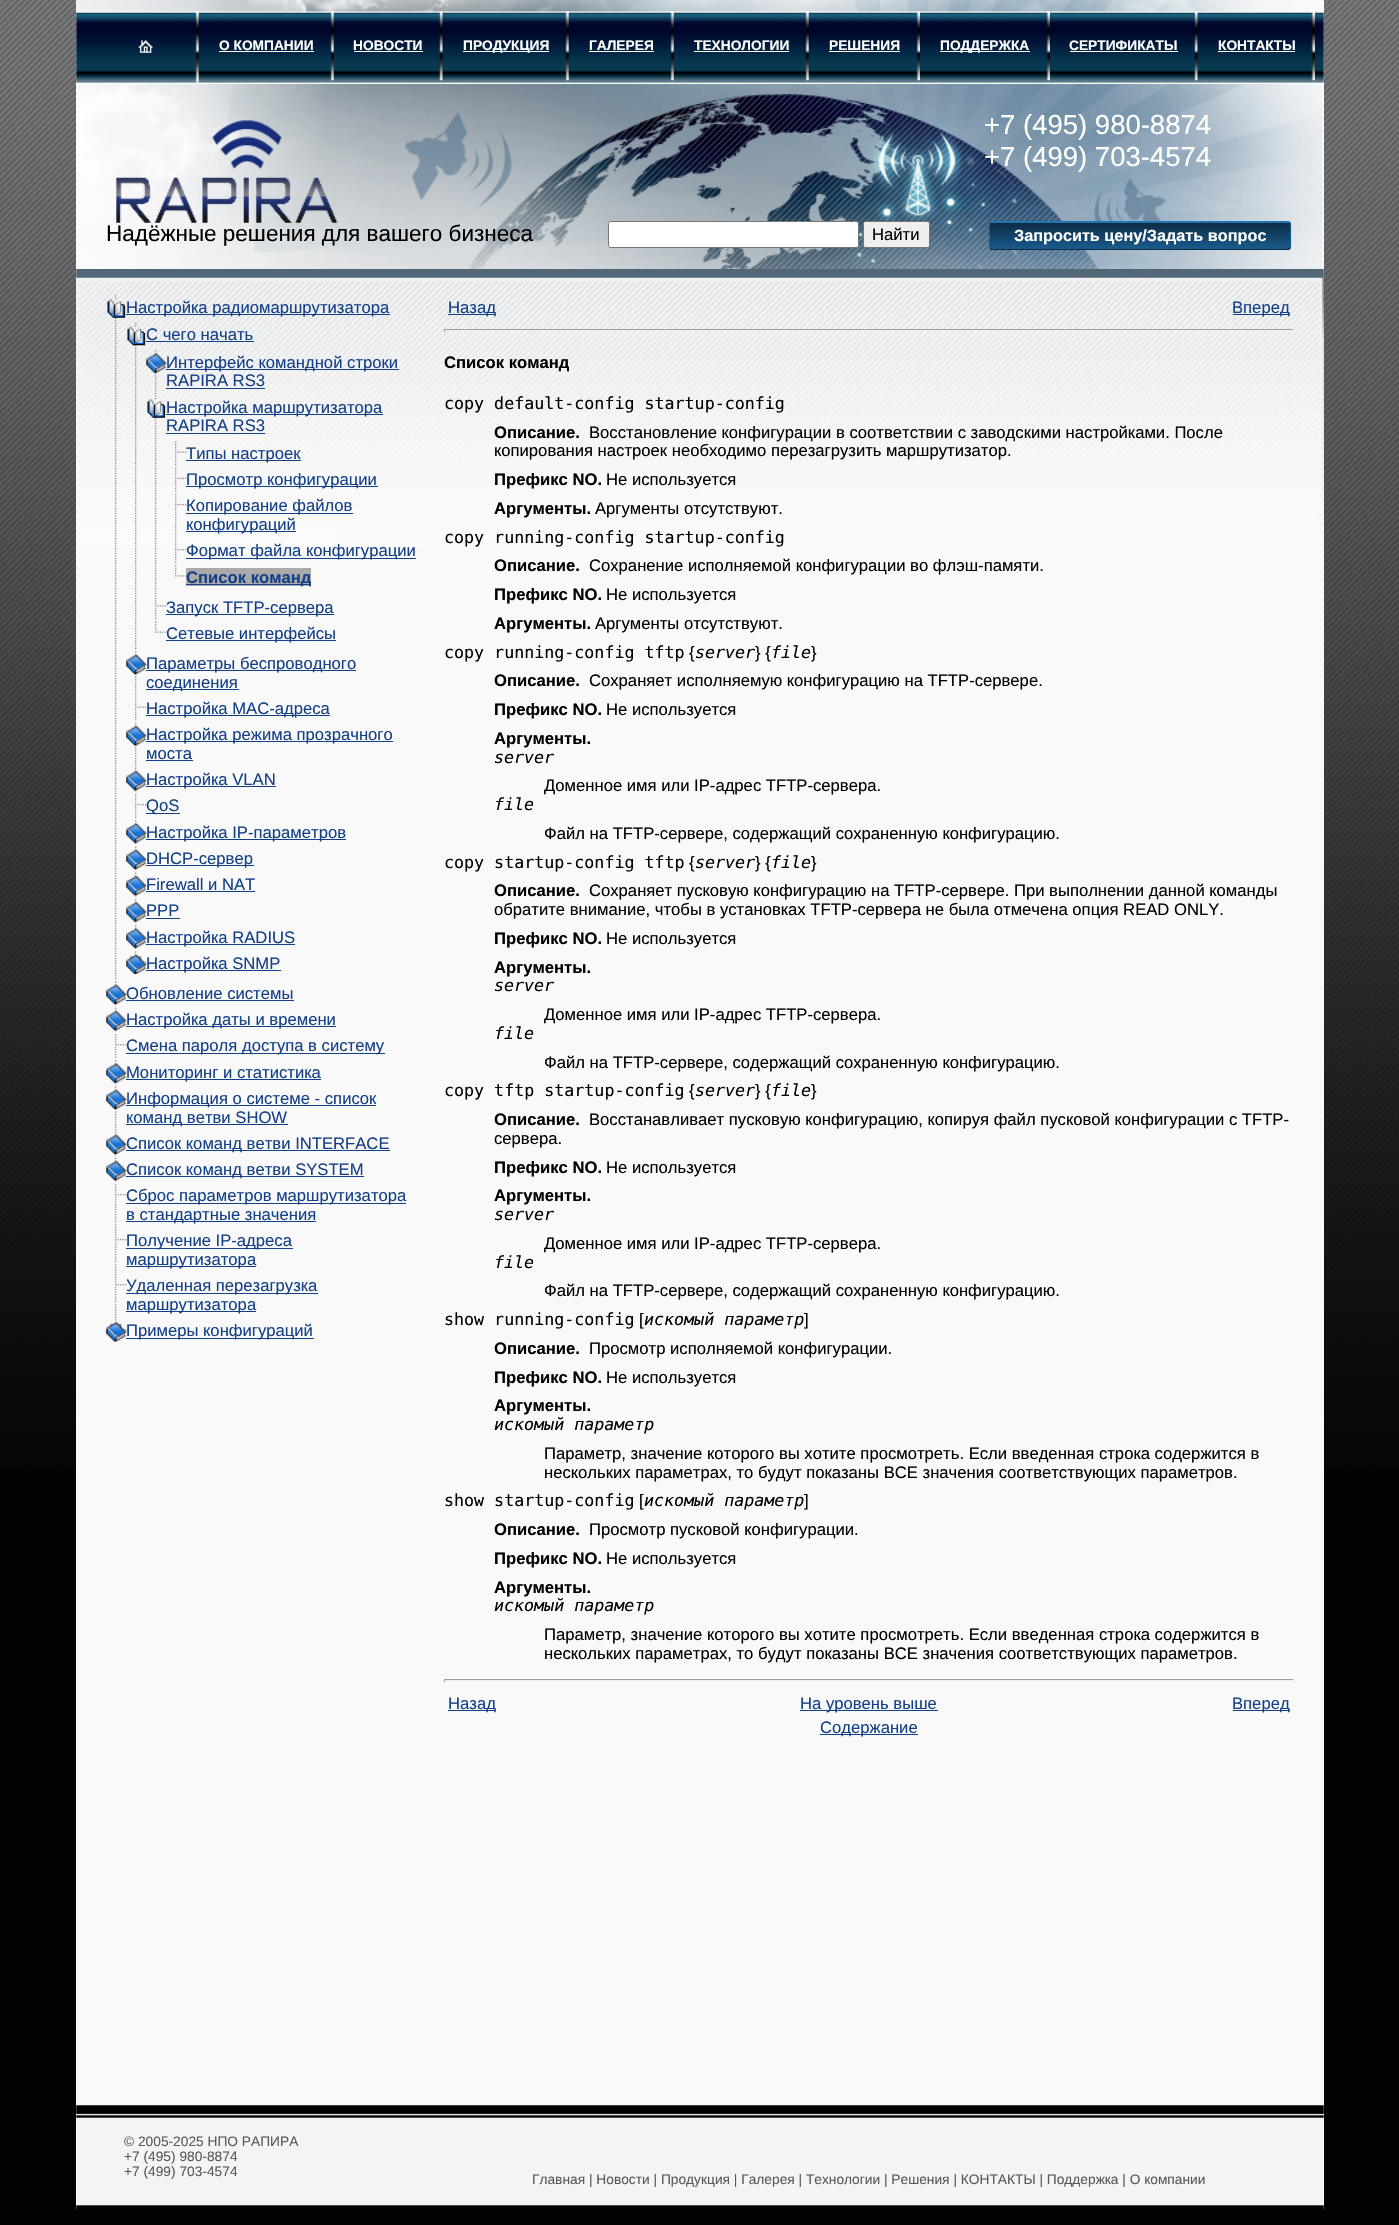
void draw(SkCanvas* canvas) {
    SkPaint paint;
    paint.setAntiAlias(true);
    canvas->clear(0xFF020202);
    canvas->drawImageRect(SkImages::DeferredFromEncodedData(SkData::MakeFromFileName("img1.png")), SkRect::MakeXYWH(0, 0, 1399, 1470), SkSamplingOptions());
    paint.setColor(0xFFF9F9F9);
    canvas->drawRect(SkRect::MakeXYWH(76, 0, 1248, 2209), paint);
    canvas->drawImageRect(SkImages::DeferredFromEncodedData(SkData::MakeFromFileName("img2.png")), SkRect::MakeXYWH(76, 0, 1247, 269), SkSamplingOptions());
    canvas->drawImageRect(SkImages::DeferredFromEncodedData(SkData::MakeFromFileName("img3.png")), SkRect::MakeXYWH(76, 11, 1248, 73), SkSamplingOptions());
    canvas->drawImageRect(SkImages::DeferredFromEncodedData(SkData::MakeFromFileName("img4.png")), SkRect::MakeXYWH(195, 11, 4, 73), SkSamplingOptions());
    canvas->drawImageRect(SkImages::DeferredFromEncodedData(SkData::MakeFromFileName("img5.png")), SkRect::MakeXYWH(138, 40, 15, 13), SkSamplingOptions());
    canvas->drawImageRect(SkImages::DeferredFromEncodedData(SkData::MakeFromFileName("img6.png")), SkRect::MakeXYWH(330, 11, 4, 70), SkSamplingOptions());
    SkFont font1(fontMgr->matchFamilyStyle("Liberation Sans", SkFontStyle::Bold()), 13.75f);
    font1.setSubpixel(true);
    paint.setColor(0xFFFFFFFF);
    canvas->drawString("О КОМПАНИИ", 219, 50, font1, paint);
    canvas->drawRect(SkRect::MakeXYWH(219, 51, 95, 1), paint);
    canvas->drawImageRect(SkImages::DeferredFromEncodedData(SkData::MakeFromFileName("img7.png")), SkRect::MakeXYWH(438, 11, 5, 70), SkSamplingOptions());
    canvas->drawString("НОВОСТИ", 353, 50, font1, paint);
    canvas->drawRect(SkRect::MakeXYWH(354, 51, 69, 1), paint);
    canvas->drawImageRect(SkImages::DeferredFromEncodedData(SkData::MakeFromFileName("img8.png")), SkRect::MakeXYWH(565, 11, 4, 70), SkSamplingOptions());
    canvas->drawRect(SkRect::MakeXYWH(463, 51, 86, 1), paint);
    canvas->drawString("ПРОДУКЦИЯ", 463, 50, font1, paint);
    canvas->drawImageRect(SkImages::DeferredFromEncodedData(SkData::MakeFromFileName("img9.png")), SkRect::MakeXYWH(670, 11, 4, 70), SkSamplingOptions());
    canvas->drawString("ГАЛЕРЕЯ", 589, 50, font1, paint);
    canvas->drawRect(SkRect::MakeXYWH(589, 51, 65, 1), paint);
    canvas->drawImageRect(SkImages::DeferredFromEncodedData(SkData::MakeFromFileName("img10.png")), SkRect::MakeXYWH(805, 11, 4, 70), SkSamplingOptions());
    canvas->drawString("ТЕХНОЛОГИИ", 694, 50, font1, paint);
    canvas->drawRect(SkRect::MakeXYWH(694, 51, 95, 1), paint);
    canvas->drawImageRect(SkImages::DeferredFromEncodedData(SkData::MakeFromFileName("img11.png")), SkRect::MakeXYWH(916, 11, 4, 70), SkSamplingOptions());
    canvas->drawString("РЕШЕНИЯ", 829, 50, font1, paint);
    canvas->drawRect(SkRect::MakeXYWH(829, 51, 71, 1), paint);
    canvas->drawImageRect(SkImages::DeferredFromEncodedData(SkData::MakeFromFileName("img12.png")), SkRect::MakeXYWH(1046, 11, 4, 70), SkSamplingOptions());
    canvas->drawRect(SkRect::MakeXYWH(940, 51, 90, 1), paint);
    canvas->drawString("ПОДДЕРЖКА", 940, 50, font1, paint);
    canvas->drawImageRect(SkImages::DeferredFromEncodedData(SkData::MakeFromFileName("img13.png")), SkRect::MakeXYWH(1193, 11, 5, 70), SkSamplingOptions());
    canvas->drawString("СЕРТИФИКАТЫ", 1069, 50, font1, paint);
    canvas->drawRect(SkRect::MakeXYWH(1070, 51, 108, 1), paint);
    canvas->drawImageRect(SkImages::DeferredFromEncodedData(SkData::MakeFromFileName("img14.png")), SkRect::MakeXYWH(1311, 11, 4, 70), SkSamplingOptions());
    canvas->drawString("КОНТАКТЫ", 1218, 50, font1, paint);
    canvas->drawRect(SkRect::MakeXYWH(1218, 51, 77, 1), paint);
    canvas->drawImageRect(SkImages::DeferredFromEncodedData(SkData::MakeFromFileName("img15.png")), SkRect::MakeXYWH(116, 120, 222, 103), SkSamplingOptions());
    SkFont font2(fontMgr->matchFamilyStyle("Liberation Sans", SkFontStyle::Normal()), 27.5f);
    font2.setSubpixel(true);
    canvas->drawString("+7 (495) 980-8874", 984, 134, font2, paint);
    canvas->drawString("+7 (499) 703-4574", 984, 166, font2, paint);
    SkFont font3(fontMgr->matchFamilyStyle("Liberation Sans", SkFontStyle::Normal()), 22.5f);
    font3.setSubpixel(true);
    paint.setColor(0xFF000000);
    canvas->drawString("Надёжные решения для вашего бизнеса", 106, 241, font3, paint);
    paint.setColor(0xFFFFFFFF);
    canvas->drawRoundRect(SkRect::MakeXYWH(608.5f, 221.5f, 250, 26), 2, 2, paint);
    paint.setStyle(SkPaint::kStroke_Style);
    paint.setStrokeWidth(1);
    paint.setColor(0xFF767676);
    canvas->drawRoundRect(SkRect::MakeXYWH(608.5f, 221.5f, 250, 26), 2, 2, paint);
    paint.setStyle(SkPaint::kFill_Style);
    paint.setColor(0xFFEFEFEF);
    canvas->drawRoundRect(SkRect::MakeXYWH(863.5f, 221.5f, 66, 26), 2, 2, paint);
    paint.setStyle(SkPaint::kStroke_Style);
    paint.setColor(0xFF767676);
    canvas->drawRoundRect(SkRect::MakeXYWH(863.5f, 221.5f, 66, 26), 2, 2, paint);
    SkFont font4(fontMgr->matchFamilyStyle("Liberation Sans", SkFontStyle::Normal()), 16.65f);
    font4.setSubpixel(true);
    paint.setStyle(SkPaint::kFill_Style);
    paint.setColor(0xFF000000);
    canvas->drawString("Найти", 872, 240, font4, paint);
    canvas->save();
    canvas->clipPath(SkPathBuilder().moveTo(992, 221).lineTo(1288, 221).cubicTo(1289.5f, 221, 1291, 222.5f, 1291, 224).lineTo(1291, 247).cubicTo(1291, 248.5f, 1289.5f, 250, 1288, 250).lineTo(992, 250).cubicTo(990.5f, 250, 989, 248.5f, 989, 247).lineTo(989, 224).cubicTo(989, 222.5f, 990.5f, 221, 992, 221).close().detach(), true);
    {
        const SkColor colors[] = {0xFF1A5B8C, 0xFF0D2B45};
        const float stops[] = {0, 1};
        const SkPoint ends[] = {{1140, 223}, {1140, 196}};
        paint.setShader(SkGradientShader::MakeLinear(ends, colors, stops, 2, SkTileMode::kClamp));
        paint.setAlpha(255);
    }
    canvas->drawRect(SkRect::MakeXYWH(989, 221, 302, 2), paint);
    {
        const SkColor colors[] = {0xFF1A5B8C, 0xFF0D2B45};
        const float stops[] = {0, 1};
        const SkPoint ends[] = {{1140, 249}, {1140, 223}};
        paint.setShader(SkGradientShader::MakeLinear(ends, colors, stops, 2, SkTileMode::kClamp));
        paint.setAlpha(255);
    }
    canvas->drawRect(SkRect::MakeXYWH(989, 223, 302, 26), paint);
    {
        const SkColor colors[] = {0xFF1A5B8C, 0xFF0D2B45};
        const float stops[] = {0, 1};
        const SkPoint ends[] = {{1140, 275}, {1140, 249}};
        paint.setShader(SkGradientShader::MakeLinear(ends, colors, stops, 2, SkTileMode::kClamp));
        paint.setAlpha(255);
    }
    canvas->drawRect(SkRect::MakeXYWH(989, 249, 302, 1), paint);
    canvas->restore();
    paint.setStyle(SkPaint::kStroke_Style);
    paint.setStrokeWidth(1.2f);
    paint.setShader(nullptr);
    paint.setColor(0xFF2690DC);
    canvas->drawPath(SkPathBuilder().moveTo(990, 222.5f).lineTo(992, 222).lineTo(1288, 222).lineTo(1290, 222.5f).detach(), paint);
    paint.setColor(0xFF1A5B8C);
    canvas->drawPath(SkPathBuilder().moveTo(1290, 222.5f).cubicTo(1290.5f, 223, 1290.5f, 224, 1290.5f, 224.5f).lineTo(1290.5f, 246.5f).cubicTo(1290.5f, 247.5f, 1290.5f, 248, 1290, 248.5f).detach(), paint);
    paint.setColor(0xFF0D2B45);
    canvas->drawPath(SkPathBuilder().moveTo(1290, 248.5f).lineTo(1288, 249.5f).lineTo(992, 249.5f).lineTo(990, 248.5f).detach(), paint);
    paint.setColor(0xFF1A5B8C);
    canvas->drawPath(SkPathBuilder().moveTo(990, 248.5f).cubicTo(989.5f, 248, 989.5f, 247.5f, 989.5f, 246.5f).lineTo(989.5f, 224.5f).cubicTo(989.5f, 224, 989.5f, 223, 990, 222.5f).detach(), paint);
    SkFont font5(fontMgr->matchFamilyStyle("Liberation Sans", SkFontStyle::Bold()), 16.25f);
    font5.setSubpixel(true);
    paint.setStyle(SkPaint::kFill_Style);
    paint.setColor(0xFFFFFFFF);
    canvas->drawString("Запросить цену/Задать вопрос", 1014, 241, font5, paint);
    canvas->drawImageRect(SkImages::DeferredFromEncodedData(SkData::MakeFromFileName("img16.png")), SkRect::MakeXYWH(76, 269, 1248, 280), SkSamplingOptions());
    canvas->drawImageRect(SkImages::DeferredFromEncodedData(SkData::MakeFromFileName("img17.png")), SkRect::MakeXYWH(114, 295, 3, 685), SkSamplingOptions());
    canvas->drawImageRect(SkImages::DeferredFromEncodedData(SkData::MakeFromFileName("img18.png")), SkRect::MakeXYWH(107, 298, 19, 20), SkSamplingOptions());
    paint.setColor(0xFF144088);
    canvas->drawRect(SkRect::MakeXYWH(126, 314, 264, 1), paint);
    canvas->drawString("Настройка радиомаршрутизатора", 126, 313, font4, paint);
    canvas->drawImageRect(SkImages::DeferredFromEncodedData(SkData::MakeFromFileName("img19.png")), SkRect::MakeXYWH(134, 322, 3, 328), SkSamplingOptions());
    canvas->drawImageRect(SkImages::DeferredFromEncodedData(SkData::MakeFromFileName("img20.png")), SkRect::MakeXYWH(127, 326, 19, 20), SkSamplingOptions());
    canvas->drawString("С чего начать", 146, 340, font4, paint);
    canvas->drawRect(SkRect::MakeXYWH(146, 341, 108, 1), paint);
    canvas->drawImageRect(SkImages::DeferredFromEncodedData(SkData::MakeFromFileName("img21.png")), SkRect::MakeXYWH(154, 350, 3, 44), SkSamplingOptions());
    canvas->drawImageRect(SkImages::DeferredFromEncodedData(SkData::MakeFromFileName("img22.png")), SkRect::MakeXYWH(146, 352, 21, 21), SkSamplingOptions());
    canvas->drawRect(SkRect::MakeXYWH(166, 369, 233, 1), paint);
    canvas->drawString("Интерфейс командной строки", 166, 368, font4, paint);
    canvas->drawString("RAPIRA RS3", 166, 386, font4, paint);
    canvas->drawRect(SkRect::MakeXYWH(166, 388, 99, 1), paint);
    canvas->drawImageRect(SkImages::DeferredFromEncodedData(SkData::MakeFromFileName("img23.png")), SkRect::MakeXYWH(154, 395, 3, 199), SkSamplingOptions());
    canvas->drawImageRect(SkImages::DeferredFromEncodedData(SkData::MakeFromFileName("img24.png")), SkRect::MakeXYWH(147, 398, 19, 20), SkSamplingOptions());
    canvas->drawRect(SkRect::MakeXYWH(166, 414, 217, 1), paint);
    canvas->drawString("Настройка маршрутизатора", 166, 413, font4, paint);
    canvas->drawString("RAPIRA RS3", 166, 431, font4, paint);
    canvas->drawRect(SkRect::MakeXYWH(166, 433, 99, 1), paint);
    canvas->drawImageRect(SkImages::DeferredFromEncodedData(SkData::MakeFromFileName("img25.png")), SkRect::MakeXYWH(174, 441, 13, 25), SkSamplingOptions());
    canvas->drawRect(SkRect::MakeXYWH(186, 460, 115, 1), paint);
    canvas->drawString("Типы настроек", 186, 459, font4, paint);
    canvas->drawImageRect(SkImages::DeferredFromEncodedData(SkData::MakeFromFileName("img26.png")), SkRect::MakeXYWH(174, 467, 13, 25), SkSamplingOptions());
    canvas->drawRect(SkRect::MakeXYWH(186, 486, 192, 1), paint);
    canvas->drawString("Просмотр конфигурации", 186, 485, font4, paint);
    canvas->drawImageRect(SkImages::DeferredFromEncodedData(SkData::MakeFromFileName("img27.png")), SkRect::MakeXYWH(174, 493, 13, 45), SkSamplingOptions());
    canvas->drawRect(SkRect::MakeXYWH(186, 513, 167, 1), paint);
    canvas->drawString("Копирование файлов", 186, 511, font4, paint);
    canvas->drawRect(SkRect::MakeXYWH(186, 531, 110, 1), paint);
    canvas->drawString("конфигураций", 186, 530, font4, paint);
    canvas->drawImageRect(SkImages::DeferredFromEncodedData(SkData::MakeFromFileName("img28.png")), SkRect::MakeXYWH(174, 538, 13, 25), SkSamplingOptions());
    canvas->drawRect(SkRect::MakeXYWH(186, 558, 230, 1), paint);
    canvas->drawString("Формат файла конфигурации", 186, 556, font4, paint);
    canvas->drawImageRect(SkImages::DeferredFromEncodedData(SkData::MakeFromFileName("img29.png")), SkRect::MakeXYWH(174, 565, 12, 12), SkSamplingOptions());
    paint.setColor(0xFFAAAAAA);
    canvas->drawRect(SkRect::MakeXYWH(186, 568, 125, 18), paint);
    paint.setColor(0xFF144088);
    canvas->drawRect(SkRect::MakeXYWH(186, 584, 125, 1), paint);
    SkFont font6(fontMgr->matchFamilyStyle("Liberation Sans", SkFontStyle::Bold()), 16.65f);
    font6.setSubpixel(true);
    canvas->drawString("Список команд", 186, 583, font6, paint);
    canvas->drawImageRect(SkImages::DeferredFromEncodedData(SkData::MakeFromFileName("img30.png")), SkRect::MakeXYWH(154, 595, 13, 25), SkSamplingOptions());
    canvas->drawRect(SkRect::MakeXYWH(166, 614, 168, 1), paint);
    canvas->drawString("Запуск TFTP-сервера", 166, 613, font4, paint);
    canvas->drawImageRect(SkImages::DeferredFromEncodedData(SkData::MakeFromFileName("img31.png")), SkRect::MakeXYWH(154, 621, 13, 12), SkSamplingOptions());
    canvas->drawRect(SkRect::MakeXYWH(166, 640, 170, 1), paint);
    canvas->drawString("Сетевые интерфейсы", 166, 639, font4, paint);
    canvas->drawImageRect(SkImages::DeferredFromEncodedData(SkData::MakeFromFileName("img32.png")), SkRect::MakeXYWH(134, 651, 3, 45), SkSamplingOptions());
    canvas->drawImageRect(SkImages::DeferredFromEncodedData(SkData::MakeFromFileName("img33.png")), SkRect::MakeXYWH(126, 654, 21, 20), SkSamplingOptions());
    canvas->drawRect(SkRect::MakeXYWH(146, 670, 210, 1), paint);
    canvas->drawString("Параметры беспроводного", 146, 669, font4, paint);
    canvas->drawRect(SkRect::MakeXYWH(146, 689, 93, 1), paint);
    canvas->drawString("соединения", 146, 688, font4, paint);
    canvas->drawImageRect(SkImages::DeferredFromEncodedData(SkData::MakeFromFileName("img34.png")), SkRect::MakeXYWH(134, 696, 13, 25), SkSamplingOptions());
    canvas->drawRect(SkRect::MakeXYWH(146, 715, 184, 1), paint);
    canvas->drawString("Настройка МАС-адреса", 146, 714, font4, paint);
    canvas->drawImageRect(SkImages::DeferredFromEncodedData(SkData::MakeFromFileName("img35.png")), SkRect::MakeXYWH(134, 722, 3, 45), SkSamplingOptions());
    canvas->drawImageRect(SkImages::DeferredFromEncodedData(SkData::MakeFromFileName("img36.png")), SkRect::MakeXYWH(126, 725, 21, 21), SkSamplingOptions());
    canvas->drawRect(SkRect::MakeXYWH(146, 741, 247, 1), paint);
    canvas->drawString("Настройка режима прозрачного", 146, 740, font4, paint);
    canvas->drawString("моста", 146, 759, font4, paint);
    canvas->drawRect(SkRect::MakeXYWH(146, 760, 47, 1), paint);
    canvas->drawImageRect(SkImages::DeferredFromEncodedData(SkData::MakeFromFileName("img37.png")), SkRect::MakeXYWH(134, 767, 3, 25), SkSamplingOptions());
    canvas->drawImageRect(SkImages::DeferredFromEncodedData(SkData::MakeFromFileName("img36.png")), SkRect::MakeXYWH(126, 770, 21, 21), SkSamplingOptions());
    canvas->drawRect(SkRect::MakeXYWH(146, 786, 130, 1), paint);
    canvas->drawString("Настройка VLAN", 146, 785, font4, paint);
    canvas->drawImageRect(SkImages::DeferredFromEncodedData(SkData::MakeFromFileName("img38.png")), SkRect::MakeXYWH(134, 793, 13, 25), SkSamplingOptions());
    canvas->drawRect(SkRect::MakeXYWH(146, 813, 34, 1), paint);
    canvas->drawString("QoS", 146, 811, font4, paint);
    canvas->drawImageRect(SkImages::DeferredFromEncodedData(SkData::MakeFromFileName("img39.png")), SkRect::MakeXYWH(134, 820, 3, 25), SkSamplingOptions());
    canvas->drawImageRect(SkImages::DeferredFromEncodedData(SkData::MakeFromFileName("img40.png")), SkRect::MakeXYWH(126, 822, 21, 21), SkSamplingOptions());
    canvas->drawRect(SkRect::MakeXYWH(146, 839, 200, 1), paint);
    canvas->drawString("Настройка IP-параметров", 146, 838, font4, paint);
    canvas->drawImageRect(SkImages::DeferredFromEncodedData(SkData::MakeFromFileName("img41.png")), SkRect::MakeXYWH(134, 846, 3, 25), SkSamplingOptions());
    canvas->drawImageRect(SkImages::DeferredFromEncodedData(SkData::MakeFromFileName("img33.png")), SkRect::MakeXYWH(126, 849, 21, 20), SkSamplingOptions());
    canvas->drawRect(SkRect::MakeXYWH(146, 865, 108, 1), paint);
    canvas->drawString("DHCP-сервер", 146, 864, font4, paint);
    canvas->drawImageRect(SkImages::DeferredFromEncodedData(SkData::MakeFromFileName("img37.png")), SkRect::MakeXYWH(134, 872, 3, 25), SkSamplingOptions());
    canvas->drawImageRect(SkImages::DeferredFromEncodedData(SkData::MakeFromFileName("img36.png")), SkRect::MakeXYWH(126, 875, 21, 21), SkSamplingOptions());
    canvas->drawString("Firewall и NAT", 146, 890, font4, paint);
    canvas->drawRect(SkRect::MakeXYWH(146, 891, 109, 1), paint);
    canvas->drawImageRect(SkImages::DeferredFromEncodedData(SkData::MakeFromFileName("img42.png")), SkRect::MakeXYWH(134, 898, 3, 25), SkSamplingOptions());
    canvas->drawImageRect(SkImages::DeferredFromEncodedData(SkData::MakeFromFileName("img43.png")), SkRect::MakeXYWH(126, 901, 21, 21), SkSamplingOptions());
    canvas->drawString("PPP", 146, 916, font4, paint);
    canvas->drawRect(SkRect::MakeXYWH(146, 918, 34, 1), paint);
    canvas->drawImageRect(SkImages::DeferredFromEncodedData(SkData::MakeFromFileName("img39.png")), SkRect::MakeXYWH(134, 925, 3, 25), SkSamplingOptions());
    canvas->drawImageRect(SkImages::DeferredFromEncodedData(SkData::MakeFromFileName("img40.png")), SkRect::MakeXYWH(126, 927, 21, 21), SkSamplingOptions());
    canvas->drawRect(SkRect::MakeXYWH(146, 944, 149, 1), paint);
    canvas->drawString("Настройка RADIUS", 146, 943, font4, paint);
    canvas->drawImageRect(SkImages::DeferredFromEncodedData(SkData::MakeFromFileName("img44.png")), SkRect::MakeXYWH(129, 951, 18, 17), SkSamplingOptions());
    canvas->drawImageRect(SkImages::DeferredFromEncodedData(SkData::MakeFromFileName("img45.png")), SkRect::MakeXYWH(126, 954, 21, 20), SkSamplingOptions());
    canvas->drawRect(SkRect::MakeXYWH(146, 970, 135, 1), paint);
    canvas->drawString("Настройка SNMP", 146, 969, font4, paint);
    canvas->drawImageRect(SkImages::DeferredFromEncodedData(SkData::MakeFromFileName("img41.png")), SkRect::MakeXYWH(114, 981, 3, 25), SkSamplingOptions());
    canvas->drawImageRect(SkImages::DeferredFromEncodedData(SkData::MakeFromFileName("img33.png")), SkRect::MakeXYWH(106, 984, 21, 20), SkSamplingOptions());
    canvas->drawString("Обновление системы", 126, 999, font4, paint);
    canvas->drawRect(SkRect::MakeXYWH(126, 1000, 168, 1), paint);
    canvas->drawImageRect(SkImages::DeferredFromEncodedData(SkData::MakeFromFileName("img46.png")), SkRect::MakeXYWH(114, 1007, 3, 25), SkSamplingOptions());
    canvas->drawImageRect(SkImages::DeferredFromEncodedData(SkData::MakeFromFileName("img47.png")), SkRect::MakeXYWH(106, 1010, 21, 21), SkSamplingOptions());
    canvas->drawRect(SkRect::MakeXYWH(126, 1026, 210, 1), paint);
    canvas->drawString("Настройка даты и времени", 126, 1025, font4, paint);
    canvas->drawImageRect(SkImages::DeferredFromEncodedData(SkData::MakeFromFileName("img38.png")), SkRect::MakeXYWH(114, 1033, 13, 25), SkSamplingOptions());
    canvas->drawRect(SkRect::MakeXYWH(126, 1053, 259, 1), paint);
    canvas->drawString("Смена пароля доступа в систему", 126, 1051, font4, paint);
    canvas->drawImageRect(SkImages::DeferredFromEncodedData(SkData::MakeFromFileName("img39.png")), SkRect::MakeXYWH(114, 1060, 3, 25), SkSamplingOptions());
    canvas->drawImageRect(SkImages::DeferredFromEncodedData(SkData::MakeFromFileName("img40.png")), SkRect::MakeXYWH(106, 1062, 21, 21), SkSamplingOptions());
    canvas->drawRect(SkRect::MakeXYWH(126, 1079, 195, 1), paint);
    canvas->drawString("Мониторинг и статистика", 126, 1078, font4, paint);
    canvas->drawImageRect(SkImages::DeferredFromEncodedData(SkData::MakeFromFileName("img32.png")), SkRect::MakeXYWH(114, 1086, 3, 45), SkSamplingOptions());
    canvas->drawImageRect(SkImages::DeferredFromEncodedData(SkData::MakeFromFileName("img33.png")), SkRect::MakeXYWH(106, 1089, 21, 20), SkSamplingOptions());
    canvas->drawRect(SkRect::MakeXYWH(126, 1105, 250, 1), paint);
    canvas->drawString("Информация о системе - cписок", 126, 1104, font4, paint);
    canvas->drawRect(SkRect::MakeXYWH(126, 1124, 162, 1), paint);
    canvas->drawString("команд ветви SHOW", 126, 1123, font4, paint);
    canvas->drawImageRect(SkImages::DeferredFromEncodedData(SkData::MakeFromFileName("img41.png")), SkRect::MakeXYWH(114, 1131, 3, 25), SkSamplingOptions());
    canvas->drawImageRect(SkImages::DeferredFromEncodedData(SkData::MakeFromFileName("img33.png")), SkRect::MakeXYWH(106, 1134, 21, 20), SkSamplingOptions());
    canvas->drawRect(SkRect::MakeXYWH(126, 1150, 264, 1), paint);
    canvas->drawString("Список команд ветви INTERFACE", 126, 1149, font4, paint);
    canvas->drawImageRect(SkImages::DeferredFromEncodedData(SkData::MakeFromFileName("img48.png")), SkRect::MakeXYWH(114, 1157, 3, 25), SkSamplingOptions());
    canvas->drawImageRect(SkImages::DeferredFromEncodedData(SkData::MakeFromFileName("img49.png")), SkRect::MakeXYWH(106, 1160, 21, 21), SkSamplingOptions());
    canvas->drawRect(SkRect::MakeXYWH(126, 1176, 238, 1), paint);
    canvas->drawString("Список команд ветви SYSTEM", 126, 1175, font4, paint);
    canvas->drawImageRect(SkImages::DeferredFromEncodedData(SkData::MakeFromFileName("img50.png")), SkRect::MakeXYWH(114, 1183, 13, 45), SkSamplingOptions());
    canvas->drawRect(SkRect::MakeXYWH(126, 1203, 280, 1), paint);
    canvas->drawString("Сброс параметров маршрутизатора", 126, 1201, font4, paint);
    canvas->drawRect(SkRect::MakeXYWH(126, 1221, 190, 1), paint);
    canvas->drawString("в стандартные значения", 126, 1220, font4, paint);
    canvas->drawImageRect(SkImages::DeferredFromEncodedData(SkData::MakeFromFileName("img50.png")), SkRect::MakeXYWH(114, 1228, 13, 45), SkSamplingOptions());
    canvas->drawRect(SkRect::MakeXYWH(126, 1248, 167, 1), paint);
    canvas->drawString("Получение IP-адреса", 126, 1246, font4, paint);
    canvas->drawRect(SkRect::MakeXYWH(126, 1266, 130, 1), paint);
    canvas->drawString("маршрутизатора", 126, 1265, font4, paint);
    canvas->drawImageRect(SkImages::DeferredFromEncodedData(SkData::MakeFromFileName("img50.png")), SkRect::MakeXYWH(114, 1273, 13, 45), SkSamplingOptions());
    canvas->drawRect(SkRect::MakeXYWH(126, 1293, 192, 1), paint);
    canvas->drawString("Удаленная перезагрузка", 126, 1291, font4, paint);
    canvas->drawRect(SkRect::MakeXYWH(126, 1311, 130, 1), paint);
    canvas->drawString("маршрутизатора", 126, 1310, font4, paint);
    canvas->drawImageRect(SkImages::DeferredFromEncodedData(SkData::MakeFromFileName("img51.png")), SkRect::MakeXYWH(109, 1318, 18, 18), SkSamplingOptions());
    canvas->drawImageRect(SkImages::DeferredFromEncodedData(SkData::MakeFromFileName("img52.png")), SkRect::MakeXYWH(106, 1321, 21, 21), SkSamplingOptions());
    canvas->drawRect(SkRect::MakeXYWH(126, 1338, 188, 1), paint);
    canvas->drawString("Примеры конфигураций", 126, 1336, font4, paint);
    canvas->drawRect(SkRect::MakeXYWH(448, 314, 47, 1), paint);
    canvas->drawString("Назад", 448, 313, font4, paint);
    canvas->drawRect(SkRect::MakeXYWH(1233, 314, 57, 1), paint);
    canvas->drawString("Вперед", 1232, 313, font4, paint);
    paint.setColor(0xFF9F9F9F);
    canvas->drawRect(SkRect::MakeXYWH(444, 329, 850, 1), paint);
    paint.setColor(0xFFEEEEEE);
    canvas->drawRect(SkRect::MakeXYWH(1293, 329, 1, 3), paint);
    canvas->drawRect(SkRect::MakeXYWH(444, 330, 850, 1), paint);
    paint.setColor(0xFF9F9F9F);
    canvas->drawRect(SkRect::MakeXYWH(444, 329, 1, 3), paint);
    paint.setColor(0xFF000000);
    canvas->drawString("Список команд", 444, 368, font6, paint);
    SkFont font7(fontMgr->matchFamilyStyle("DejaVu Sans Mono", SkFontStyle::Normal()), 16.65f);
    font7.setSubpixel(true);
    canvas->drawString("copy default-config startup-config", 444, 409, font7, paint);
    canvas->drawString("Описание.", 494, 438, font6, paint);
    canvas->drawString("Восстановление конфигурации в соответствии с заводскими настройками. После", 589, 438, font4, paint);
    canvas->drawString("копирования настроек необходимо перезагрузить маршрутизатор.", 494, 456, font4, paint);
    canvas->drawString("Префикс NO.", 494, 485, font6, paint);
    canvas->drawString("Не используется", 606, 485, font4, paint);
    canvas->drawString("Аргументы.", 494, 514, font6, paint);
    canvas->drawString("Аргументы отсутствуют.", 595, 514, font4, paint);
    canvas->drawString("copy running-config startup-config", 444, 543, font7, paint);
    canvas->drawString("Описание.", 494, 571, font6, paint);
    canvas->drawString("Сохранение исполняемой конфигурации во флэш-памяти.", 589, 571, font4, paint);
    canvas->drawString("Префикс NO.", 494, 600, font6, paint);
    canvas->drawString("Не используется", 606, 600, font4, paint);
    canvas->drawString("Аргументы.", 494, 629, font6, paint);
    canvas->drawString("Аргументы отсутствуют.", 595, 629, font4, paint);
    canvas->drawString("copy running-config tftp", 444, 658, font7, paint);
    canvas->drawString("{", 689, 658, font4, paint);
    SkFont font8(fontMgr->matchFamilyStyle("DejaVu Sans Mono", SkFontStyle::Italic()), 16.65f);
    font8.setSubpixel(true);
    canvas->drawString("server", 695, 658, font8, paint);
    canvas->drawString("} {", 755, 658, font4, paint);
    canvas->drawString("file", 771, 658, font8, paint);
    canvas->drawString("}", 811, 658, font4, paint);
    canvas->drawString("Описание.", 494, 686, font6, paint);
    canvas->drawString("Сохраняет исполняемую конфигурацию на TFTP-сервере.", 589, 686, font4, paint);
    canvas->drawString("Префикс NO.", 494, 715, font6, paint);
    canvas->drawString("Не используется", 606, 715, font4, paint);
    canvas->drawString("Аргументы.", 494, 744, font6, paint);
    canvas->drawString("server", 494, 763, font8, paint);
    canvas->drawString("Доменное имя или IP-адрес TFTP-сервера.", 544, 791, font4, paint);
    canvas->drawString("file", 494, 810, font8, paint);
    canvas->drawString("Файл на TFTP-сервере, содержащий сохраненную конфигурацию.", 544, 839, font4, paint);
    canvas->drawString("copy startup-config tftp", 444, 868, font7, paint);
    canvas->drawString("{", 689, 868, font4, paint);
    canvas->drawString("server", 695, 868, font8, paint);
    canvas->drawString("} {", 755, 868, font4, paint);
    canvas->drawString("file", 771, 868, font8, paint);
    canvas->drawString("}", 811, 868, font4, paint);
    canvas->drawString("Описание.", 494, 896, font6, paint);
    canvas->drawString("Сохраняет пусковую конфигурацию на TFTP-сервере. При выполнении данной команды", 589, 896, font4, paint);
    canvas->drawString("обратите внимание, чтобы в установках TFTP-сервера не была отмечена опция READ ONLY.", 494, 915, font4, paint);
    canvas->drawString("Префикс NO.", 494, 944, font6, paint);
    canvas->drawString("Не используется", 606, 944, font4, paint);
    canvas->drawString("Аргументы.", 494, 973, font6, paint);
    canvas->drawString("server", 494, 991, font8, paint);
    canvas->drawString("Доменное имя или IP-адрес TFTP-сервера.", 544, 1020, font4, paint);
    canvas->drawString("file", 494, 1039, font8, paint);
    canvas->drawString("Файл на TFTP-сервере, содержащий сохраненную конфигурацию.", 544, 1068, font4, paint);
    canvas->drawString("copy tftp startup-config", 444, 1096, font7, paint);
    canvas->drawString("{", 689, 1096, font4, paint);
    canvas->drawString("server", 695, 1096, font8, paint);
    canvas->drawString("} {", 755, 1096, font4, paint);
    canvas->drawString("file", 771, 1096, font8, paint);
    canvas->drawString("}", 811, 1096, font4, paint);
    canvas->drawString("Описание.", 494, 1125, font6, paint);
    canvas->drawString("Восстанавливает пусковую конфигурацию, копируя файл пусковой конфигурации с TFTP-", 589, 1125, font4, paint);
    canvas->drawString("сервера.", 494, 1144, font4, paint);
    canvas->drawString("Префикс NO.", 494, 1173, font6, paint);
    canvas->drawString("Не используется", 606, 1173, font4, paint);
    canvas->drawString("Аргументы.", 494, 1201, font6, paint);
    canvas->drawString("server", 494, 1220, font8, paint);
    canvas->drawString("Доменное имя или IP-адрес TFTP-сервера.", 544, 1249, font4, paint);
    canvas->drawString("file", 494, 1268, font8, paint);
    canvas->drawString("Файл на TFTP-сервере, содержащий сохраненную конфигурацию.", 544, 1296, font4, paint);
    canvas->drawString("show running-config", 444, 1325, font7, paint);
    canvas->drawString("[", 639, 1325, font4, paint);
    canvas->drawString("искомый параметр", 644, 1325, font8, paint);
    canvas->drawString("]", 804, 1325, font4, paint);
    canvas->drawString("Описание.", 494, 1354, font6, paint);
    canvas->drawString("Просмотр исполняемой конфигурации.", 589, 1354, font4, paint);
    canvas->drawString("Префикс NO.", 494, 1383, font6, paint);
    canvas->drawString("Не используется", 606, 1383, font4, paint);
    canvas->drawString("Аргументы.", 494, 1411, font6, paint);
    canvas->drawString("искомый параметр", 494, 1430, font8, paint);
    canvas->drawString("Параметр, значение которого вы хотите просмотреть. Если введенная строка содержится в", 544, 1459, font4, paint);
    canvas->drawString("нескольких параметрах, то будут показаны ВСЕ значения соответствующих параметров.", 544, 1478, font4, paint);
    canvas->drawString("show startup-config", 444, 1506, font7, paint);
    canvas->drawString("[", 639, 1506, font4, paint);
    canvas->drawString("искомый параметр", 644, 1506, font8, paint);
    canvas->drawString("]", 804, 1506, font4, paint);
    canvas->drawString("Описание.", 494, 1535, font6, paint);
    canvas->drawString("Просмотр пусковой конфигурации.", 589, 1535, font4, paint);
    canvas->drawString("Префикс NO.", 494, 1564, font6, paint);
    canvas->drawString("Не используется", 606, 1564, font4, paint);
    canvas->drawString("Аргументы.", 494, 1593, font6, paint);
    canvas->drawString("искомый параметр", 494, 1611, font8, paint);
    canvas->drawString("Параметр, значение которого вы хотите просмотреть. Если введенная строка содержится в", 544, 1640, font4, paint);
    canvas->drawString("нескольких параметрах, то будут показаны ВСЕ значения соответствующих параметров.", 544, 1659, font4, paint);
    paint.setColor(0xFF9F9F9F);
    canvas->drawRect(SkRect::MakeXYWH(444, 1679, 850, 1), paint);
    paint.setColor(0xFFEEEEEE);
    canvas->drawRect(SkRect::MakeXYWH(1293, 1679, 1, 3), paint);
    canvas->drawRect(SkRect::MakeXYWH(444, 1680, 850, 1), paint);
    paint.setColor(0xFF9F9F9F);
    canvas->drawRect(SkRect::MakeXYWH(444, 1679, 1, 3), paint);
    paint.setColor(0xFF144088);
    canvas->drawRect(SkRect::MakeXYWH(448, 1710, 47, 1), paint);
    canvas->drawString("Назад", 448, 1709, font4, paint);
    canvas->drawRect(SkRect::MakeXYWH(800, 1710, 138, 1), paint);
    canvas->drawString("На уровень выше", 800, 1709, font4, paint);
    canvas->drawRect(SkRect::MakeXYWH(1233, 1710, 57, 1), paint);
    canvas->drawString("Вперед", 1232, 1709, font4, paint);
    canvas->drawRect(SkRect::MakeXYWH(820, 1734, 98, 1), paint);
    canvas->drawString("Содержание", 820, 1733, font4, paint);
    canvas->drawImageRect(SkImages::DeferredFromEncodedData(SkData::MakeFromFileName("img53.png")), SkRect::MakeXYWH(76, 2105, 1248, 104), SkSamplingOptions());
    SkFont font9(fontMgr->matchFamilyStyle("Liberation Sans", SkFontStyle::Normal()), 13.75f);
    font9.setSubpixel(true);
    paint.setColor(0xFF595959);
    canvas->drawString("© 2005-2025 НПО РАПИРА", 124, 2146, font9, paint);
    canvas->drawString("+7 (495) 980-8874", 124, 2161, font9, paint);
    canvas->drawString("+7 (499) 703-4574", 124, 2176, font9, paint);
    canvas->drawString("Главная | Новости | Продукция | Галерея | Технологии | Решения | КОНТАКТЫ | Поддержка | О компании", 532, 2184, font9, paint);
}
